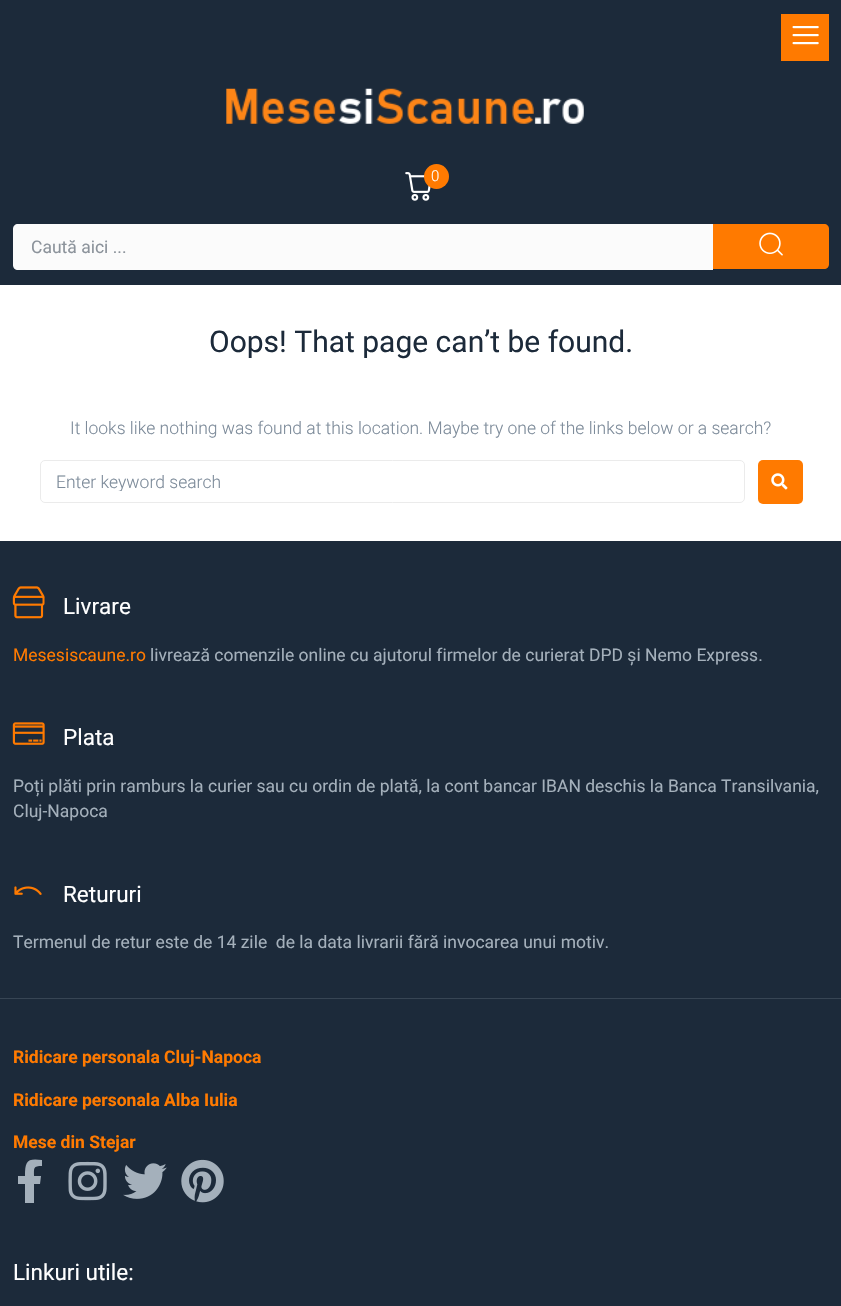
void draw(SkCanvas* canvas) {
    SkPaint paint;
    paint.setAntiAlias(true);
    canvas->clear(0xFFFFFFFF);
    paint.setColor(0xFF1C2A3A);
    canvas->drawRect(SkRect::MakeXYWH(0, 0, 841, 285), paint);
    paint.setColor(0xFFFF7A00);
    canvas->drawRect(SkRect::MakeXYWH(781, 14, 48, 47), paint);
    canvas->drawImageRect(SkImages::DeferredFromEncodedData(SkData::MakeFromFileName("img1.png")), SkRect::MakeXYWH(792, 26, 27, 19), SkSamplingOptions());
    canvas->drawImageRect(SkImages::DeferredFromEncodedData(SkData::MakeFromFileName("img2.png")), SkRect::MakeXYWH(226, 88, 358, 36), SkSamplingOptions());
    canvas->drawImageRect(SkImages::DeferredFromEncodedData(SkData::MakeFromFileName("img3.png")), SkRect::MakeXYWH(405, 172, 26, 29), SkSamplingOptions());
    canvas->drawCircle(436.5f, 176.5f, 12.5f, paint);
    SkFont font1(fontMgr->matchFamilyStyle("Roboto", SkFontStyle(300, SkFontStyle::kNormal_Width, SkFontStyle::kUpright_Slant)), 15);
    font1.setSubpixel(true);
    paint.setColor(0xFFFFFFFF);
    canvas->drawString("0", 431, 181, font1, paint);
    paint.setColor(0xFFFBFBFB);
    canvas->drawPath(SkPathBuilder().moveTo(18, 224).lineTo(713, 224).lineTo(713, 270).lineTo(18, 270).cubicTo(15, 270, 13, 268, 13, 265).lineTo(13, 229).cubicTo(13, 226, 15, 224, 18, 224).close().detach(), paint);
    SkFont font2(fontMgr->matchFamilyStyle("Roboto", SkFontStyle::Normal()), 17.5f);
    font2.setSubpixel(true);
    paint.setColor(0xFF8C939B);
    canvas->drawString("Caută aici ...", 31, 253, font2, paint);
    paint.setColor(0xFFFF7A00);
    canvas->drawPath(SkPathBuilder().moveTo(713, 224).lineTo(824, 224).cubicTo(827, 224, 829, 226, 829, 229).lineTo(829, 264).cubicTo(829, 267, 827, 269, 824, 269).lineTo(713, 269).close().detach(), paint);
    canvas->drawImageRect(SkImages::DeferredFromEncodedData(SkData::MakeFromFileName("img4.png")), SkRect::MakeXYWH(759, 232, 24, 24), SkSamplingOptions());
    SkFont font3(fontMgr->matchFamilyStyle("Roboto", SkFontStyle::Normal()), 30);
    font3.setSubpixel(true);
    paint.setColor(0xFF1C2A3A);
    canvas->drawString("Oops! That page can’t be found.", 209, 352, font3, paint);
    SkFont font4(fontMgr->matchFamilyStyle("Roboto", SkFontStyle(300, SkFontStyle::kNormal_Width, SkFontStyle::kUpright_Slant)), 17.5f);
    font4.setSubpixel(true);
    paint.setColor(0xFF7D8B9A);
    canvas->drawString("It looks like nothing was found at this location. Maybe try one of the links below or a search?", 70, 434, font4, paint);
    paint.setStyle(SkPaint::kStroke_Style);
    paint.setStrokeWidth(1);
    paint.setColor(0xFFEBEBEB);
    canvas->drawRoundRect(SkRect::MakeXYWH(40.5f, 460.5f, 704, 42), 4.5f, 4.5f, paint);
    canvas->save();
    canvas->clipRect(SkRect::MakeXYWH(56, 471, 668, 20));
    paint.setStyle(SkPaint::kFill_Style);
    paint.setColor(0xFF7D8B9A);
    canvas->drawString("Enter keyword search", 56, 488, font4, paint);
    canvas->restore();
    paint.setColor(0xFFFF7A00);
    canvas->drawRoundRect(SkRect::MakeXYWH(758, 460, 45, 44), 5, 5, paint);
    canvas->drawImageRect(SkImages::DeferredFromEncodedData(SkData::MakeFromFileName("img5.png")), SkRect::MakeXYWH(771, 473, 17, 17), SkSamplingOptions());
    paint.setColor(0xFF1C2A3A);
    canvas->drawRect(SkRect::MakeXYWH(0, 541, 841, 457), paint);
    paint.setColor(0xFF374554);
    canvas->drawRect(SkRect::MakeXYWH(0, 998, 841, 1), paint);
    canvas->drawImageRect(SkImages::DeferredFromEncodedData(SkData::MakeFromFileName("img6.png")), SkRect::MakeXYWH(12, 586, 33, 33), SkSamplingOptions());
    SkFont font5(fontMgr->matchFamilyStyle("Roboto", SkFontStyle::Normal()), 22.5f);
    font5.setSubpixel(true);
    paint.setColor(0xFFFFFFFF);
    canvas->drawString("Livrare", 63, 614, font5, paint);
    paint.setColor(0xFFFF7A00);
    canvas->drawString("Mesesiscaune.ro", 13, 661, font2, paint);
    paint.setColor(0xFFA4B0BB);
    canvas->drawString("livrează comenzile online cu ajutorul firmelor de curierat DPD și Nemo Express.", 150, 661, font2, paint);
    canvas->drawImageRect(SkImages::DeferredFromEncodedData(SkData::MakeFromFileName("img7.png")), SkRect::MakeXYWH(12, 722, 33, 23), SkSamplingOptions());
    paint.setColor(0xFFFFFFFF);
    canvas->drawString("Plata", 63, 745, font5, paint);
    paint.setColor(0xFFA4B0BB);
    canvas->drawString("Poți plăti prin ramburs la curier sau cu ordin de plată, la cont bancar IBAN deschis la Banca Transilvania,", 13, 792, font2, paint);
    canvas->drawString("Cluj-Napoca", 13, 817, font2, paint);
    canvas->drawImageRect(SkImages::DeferredFromEncodedData(SkData::MakeFromFileName("img8.png")), SkRect::MakeXYWH(14, 886, 28, 9), SkSamplingOptions());
    paint.setColor(0xFFFFFFFF);
    canvas->drawString("Retururi", 63, 902, font5, paint);
    paint.setColor(0xFFA4B0BB);
    canvas->drawString("Termenul de retur este de 14 zile  de la data livrarii fără invocarea unui motiv.", 13, 948, font2, paint);
    paint.setColor(0xFF1C2A3A);
    canvas->drawRect(SkRect::MakeXYWH(0, 999, 841, 307), paint);
    SkFont font6(fontMgr->matchFamilyStyle("Roboto", SkFontStyle::Bold()), 17.5f);
    font6.setSubpixel(true);
    paint.setColor(0xFFFF7A00);
    canvas->drawString("Ridicare personala Cluj-Napoca", 13, 1063, font6, paint);
    canvas->drawString("Ridicare personala Alba Iulia", 13, 1106, font6, paint);
    canvas->drawString("Mese din Stejar", 13, 1148, font6, paint);
    paint.setColor(0xFFA4B0BB);
    canvas->drawPath(SkPathBuilder().moveTo(40, 1184).lineTo(34, 1184).lineTo(34, 1203).lineTo(25, 1203).lineTo(25, 1184).lineTo(18, 1184).lineTo(18, 1176).lineTo(25, 1176).cubicTo(25, 1161, 27, 1158, 42, 1160).lineTo(42, 1166).cubicTo(33, 1166, 34, 1168, 34, 1176).lineTo(41, 1176).close().detach(), paint);
    canvas->drawImageRect(SkImages::DeferredFromEncodedData(SkData::MakeFromFileName("img9.png")), SkRect::MakeXYWH(68, 1161, 39, 40), SkSamplingOptions());
    canvas->drawImageRect(SkImages::DeferredFromEncodedData(SkData::MakeFromFileName("img10.png")), SkRect::MakeXYWH(123, 1163, 44, 36), SkSamplingOptions());
    canvas->drawImageRect(SkImages::DeferredFromEncodedData(SkData::MakeFromFileName("img11.png")), SkRect::MakeXYWH(181, 1159, 43, 44), SkSamplingOptions());
    paint.setColor(0xFFFFFFFF);
    canvas->drawString("Linkuri utile:", 13, 1280, font5, paint);
}
